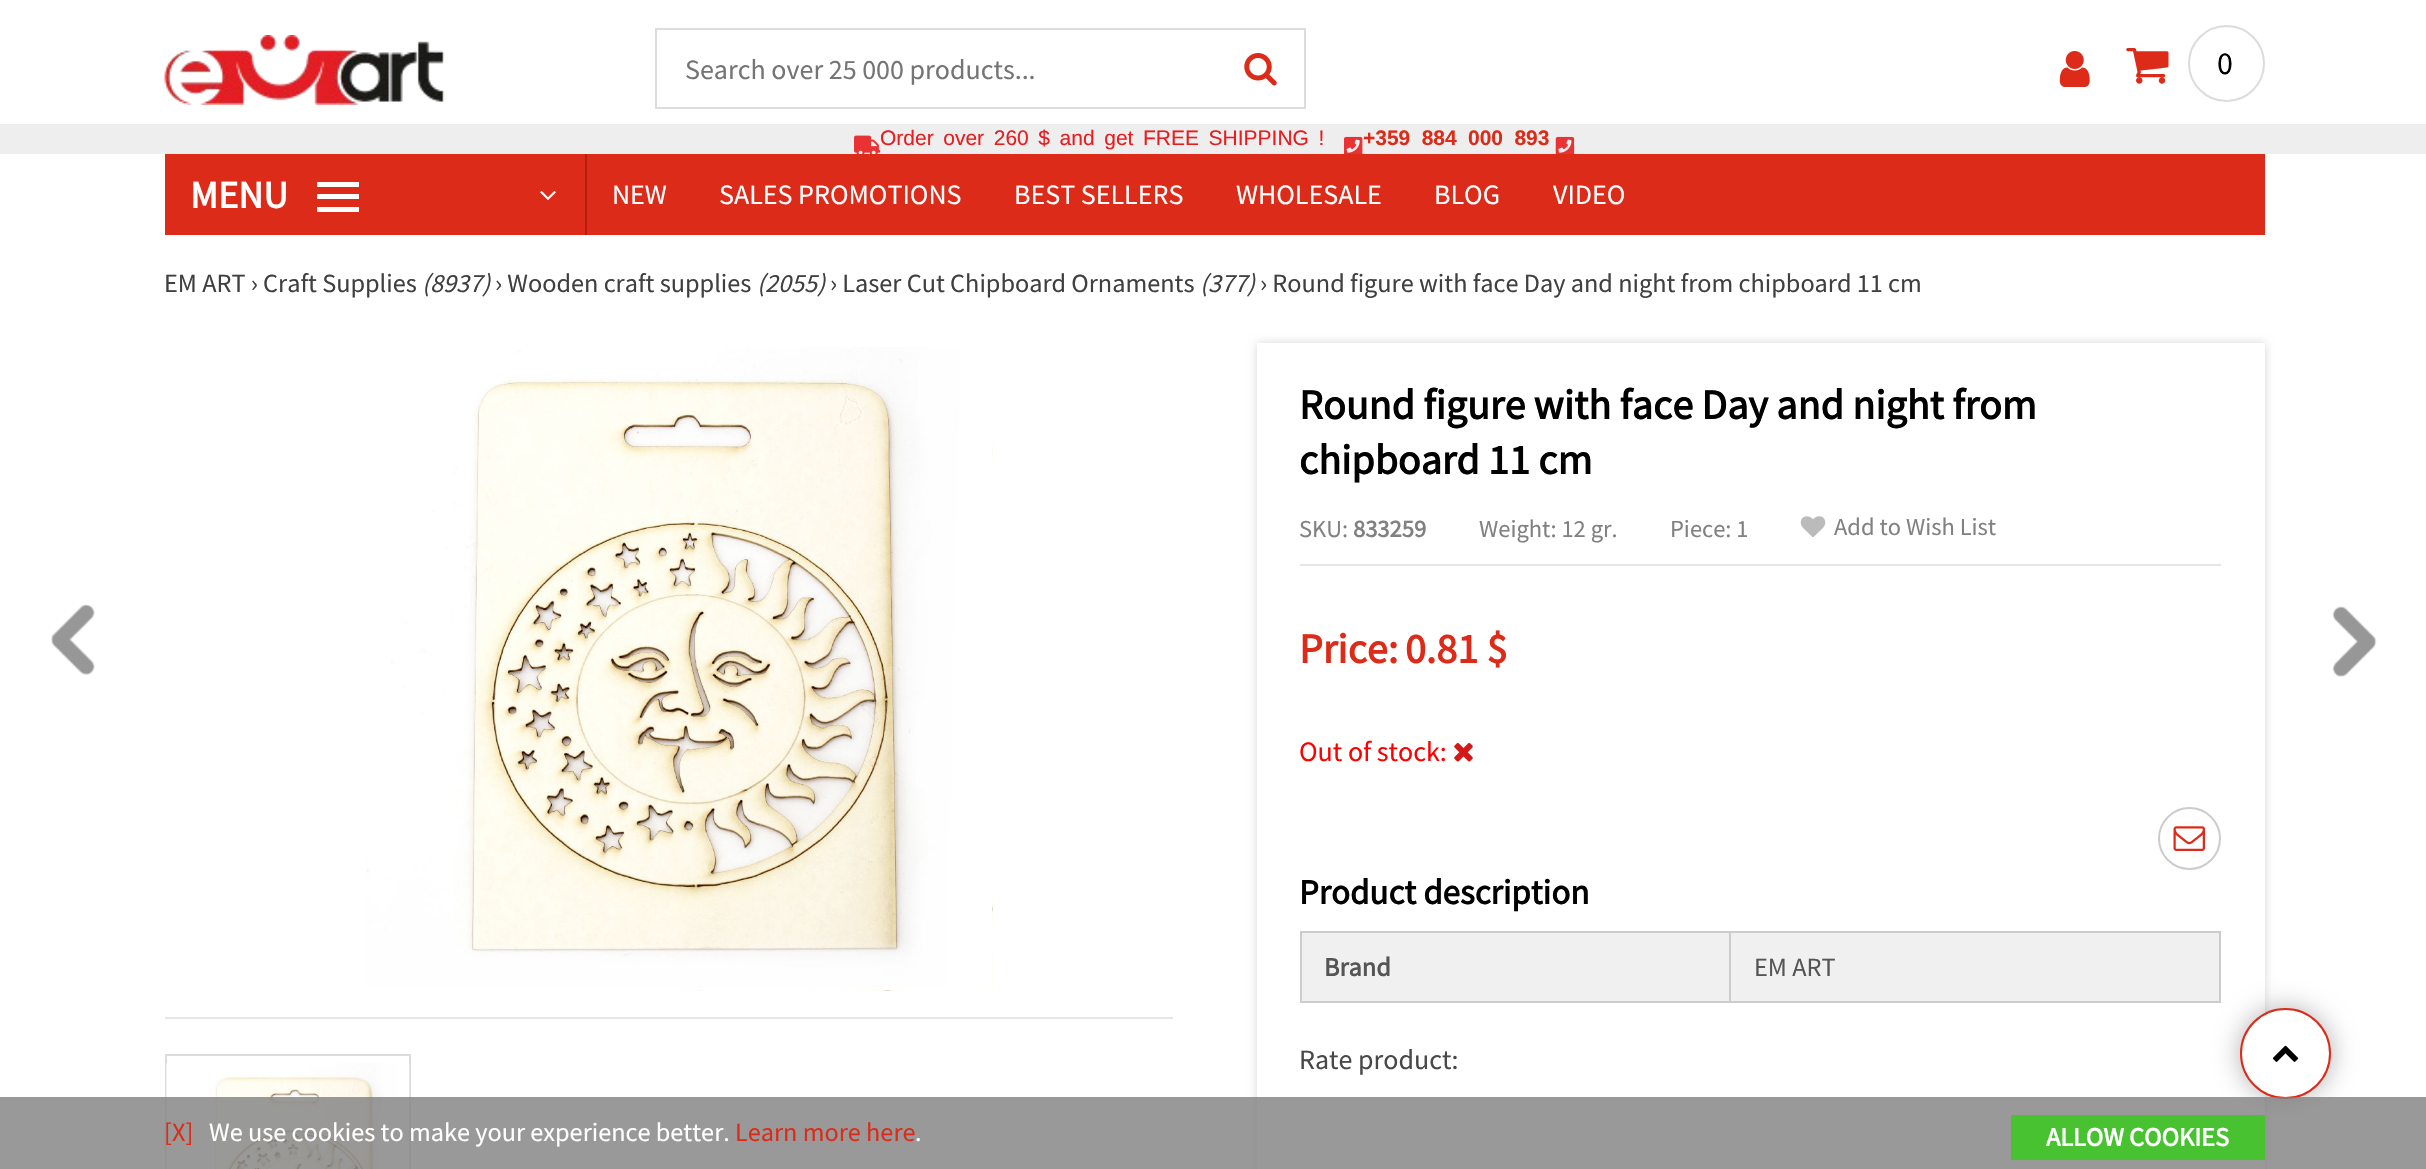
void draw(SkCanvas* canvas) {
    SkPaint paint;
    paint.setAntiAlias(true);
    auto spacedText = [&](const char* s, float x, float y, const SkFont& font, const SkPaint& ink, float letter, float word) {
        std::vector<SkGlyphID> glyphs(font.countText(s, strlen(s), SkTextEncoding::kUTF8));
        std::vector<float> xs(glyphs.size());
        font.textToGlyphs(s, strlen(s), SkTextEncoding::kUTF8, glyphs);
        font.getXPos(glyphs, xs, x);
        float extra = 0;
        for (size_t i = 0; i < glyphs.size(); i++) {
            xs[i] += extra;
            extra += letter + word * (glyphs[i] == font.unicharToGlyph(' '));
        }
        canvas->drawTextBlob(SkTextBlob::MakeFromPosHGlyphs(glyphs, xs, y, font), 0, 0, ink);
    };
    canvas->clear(0xFFFFFFFF);
    canvas->drawImageRect(SkImages::DeferredFromEncodedData(SkData::MakeFromFileName("img1.png")), SkRect::MakeXYWH(164, 35, 281, 70), SkSamplingOptions());
    paint.setStyle(SkPaint::kStroke_Style);
    paint.setStrokeWidth(2);
    paint.setColor(0xFFDCDCDC);
    canvas->drawRect(SkRect::MakeXYWH(656, 29, 649, 79), paint);
    SkFont font1(fontMgr->matchFamilyStyle("Source Sans Pro", SkFontStyle::Normal()), 28);
    font1.setSubpixel(true);
    paint.setStyle(SkPaint::kFill_Style);
    paint.setColor(0xFF757575);
    canvas->drawString("Search over 25 000 products...", 685, 79, font1, paint);
    canvas->drawImageRect(SkImages::DeferredFromEncodedData(SkData::MakeFromFileName("img2.png")), SkRect::MakeXYWH(1244, 53, 33, 33), SkSamplingOptions());
    canvas->drawImageRect(SkImages::DeferredFromEncodedData(SkData::MakeFromFileName("img3.png")), SkRect::MakeXYWH(2059, 51, 31, 36), SkSamplingOptions());
    canvas->drawImageRect(SkImages::DeferredFromEncodedData(SkData::MakeFromFileName("img4.png")), SkRect::MakeXYWH(2126, 48, 43, 36), SkSamplingOptions());
    paint.setStyle(SkPaint::kStroke_Style);
    paint.setColor(0xFFDCDCDC);
    canvas->drawCircle(2226.5f, 63.5f, 37.5f, paint);
    SkFont font2(fontMgr->matchFamilyStyle("Source Sans Pro", SkFontStyle::Normal()), 32);
    font2.setSubpixel(true);
    paint.setStyle(SkPaint::kFill_Style);
    paint.setColor(0xFF000000);
    canvas->drawString("0", 2217, 74, font2, paint);
    paint.setColor(0xFFEEEEEE);
    canvas->drawRect(SkRect::MakeXYWH(0, 124, 2426, 30), paint);
    canvas->drawImageRect(SkImages::DeferredFromEncodedData(SkData::MakeFromFileName("img5.png")), SkRect::MakeXYWH(854, 135, 27, 19), SkSamplingOptions());
    SkFont font3(fontMgr->matchFamilyStyle("Liberation Sans", SkFontStyle::Normal()), 21);
    font3.setSubpixel(true);
    paint.setColor(0xFFE81D1F);
    spacedText("Order over 260 $ and get FREE SHIPPING !", 880, 145, font3, paint, 0, 3.75f);
    canvas->drawImageRect(SkImages::DeferredFromEncodedData(SkData::MakeFromFileName("img6.png")), SkRect::MakeXYWH(1344, 136, 19, 18), SkSamplingOptions());
    SkFont font4(fontMgr->matchFamilyStyle("Liberation Sans", SkFontStyle::Bold()), 21);
    font4.setSubpixel(true);
    paint.setColor(0xFFDC2B19);
    spacedText("+359 884 000 893", 1363, 145, font4, paint, 0, 5.5f);
    canvas->drawImageRect(SkImages::DeferredFromEncodedData(SkData::MakeFromFileName("img7.png")), SkRect::MakeXYWH(1555, 136, 20, 18), SkSamplingOptions());
    canvas->drawRect(SkRect::MakeXYWH(165, 154, 2100, 81), paint);
    paint.setColor(0xFFB71E0E);
    canvas->drawRect(SkRect::MakeXYWH(585, 154, 2, 81), paint);
    SkFont font5(fontMgr->matchFamilyStyle("Source Sans Pro", SkFontStyle::Bold()), 38.5f);
    font5.setSubpixel(true);
    paint.setColor(0xFFFFFFFF);
    canvas->drawString("MENU", 190, 208, font5, paint);
    canvas->drawRect(SkRect::MakeXYWH(317, 194, 42, 5), paint);
    canvas->drawRect(SkRect::MakeXYWH(317, 182, 42, 5), paint);
    canvas->drawRect(SkRect::MakeXYWH(317, 207, 42, 5), paint);
    canvas->drawImageRect(SkImages::DeferredFromEncodedData(SkData::MakeFromFileName("img8.png")), SkRect::MakeXYWH(540, 191, 16, 9), SkSamplingOptions());
    canvas->drawString("NEW", 612, 204, font1, paint);
    canvas->drawString("SALES PROMOTIONS", 719, 204, font1, paint);
    canvas->drawString("BEST SELLERS", 1014, 204, font1, paint);
    canvas->drawString("WHOLESALE", 1236, 204, font1, paint);
    canvas->drawString("BLOG", 1434, 204, font1, paint);
    canvas->drawString("VIDEO", 1553, 204, font1, paint);
    canvas->drawImageRect(SkImages::DeferredFromEncodedData(SkData::MakeFromFileName("img9.png")), SkRect::MakeXYWH(51, 604, 44, 71), SkSamplingOptions());
    SkFont font6(fontMgr->matchFamilyStyle("Source Sans Pro", SkFontStyle::Normal()), 26.25f);
    font6.setSubpixel(true);
    paint.setColor(0xFF404040);
    canvas->drawString("EM ART › Craft Supplies", 164, 292, font6, paint);
    SkFont font7(fontMgr->matchFamilyStyle("Source Sans Pro", SkFontStyle::Italic()), 26.25f);
    font7.setSubpixel(true);
    canvas->drawString("(8937)", 422, 292, font7, paint);
    canvas->drawString("› Wooden craft supplies", 495, 292, font6, paint);
    canvas->drawString("(2055)", 757, 292, font7, paint);
    canvas->drawString("› Laser Cut Chipboard Ornaments", 830, 292, font6, paint);
    canvas->drawString("(377)", 1200, 292, font7, paint);
    canvas->drawString("› Round figure with face Day and night from chipboard 11 cm", 1260, 292, font6, paint);
    canvas->drawImageRect(SkImages::DeferredFromEncodedData(SkData::MakeFromFileName("img10.png")), SkRect::MakeXYWH(582, 364, 411, 627), SkSamplingOptions());
    canvas->drawImageRect(SkImages::DeferredFromEncodedData(SkData::MakeFromFileName("img11.png")), SkRect::MakeXYWH(366, 347, 626, 644), SkSamplingOptions());
    paint.setColor(0xFFE6E6E6);
    canvas->drawRect(SkRect::MakeXYWH(165, 1017, 1008, 2), paint);
    paint.setStyle(SkPaint::kStroke_Style);
    paint.setColor(0xFFDCDCDC);
    canvas->drawRect(SkRect::MakeXYWH(166, 1055, 244, 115), paint);
    canvas->drawImageRect(SkImages::DeferredFromEncodedData(SkData::MakeFromFileName("img12.png")), SkRect::MakeXYWH(166, 1063, 244, 106), SkSamplingOptions());
    canvas->save();
    canvas->clipPath(SkPathBuilder(SkPathFillType::kEvenOdd).moveTo(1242, 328).lineTo(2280, 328).lineTo(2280, 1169).lineTo(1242, 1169).close().moveTo(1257, 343).lineTo(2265, 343).lineTo(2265, 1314).lineTo(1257, 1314).close().detach(), true);
    paint.setStyle(SkPaint::kFill_Style);
    paint.setColor(0x26000000);
    paint.setMaskFilter(SkMaskFilter::MakeBlur(kNormal_SkBlurStyle, 4.5f));
    canvas->drawRect(SkRect::MakeXYWH(1257, 343, 1008, 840), paint);
    paint.setMaskFilter(nullptr);
    canvas->restore();
    SkFont font8(fontMgr->matchFamilyStyle("Source Sans Pro", SkFontStyle::Bold()), 42);
    font8.setSubpixel(true);
    paint.setColor(0xFF000000);
    canvas->drawString("Round figure with face Day and night from", 1299, 419, font8, paint);
    canvas->drawString("chipboard 11 cm", 1299, 474, font8, paint);
    paint.setColor(0xFFE6E6E6);
    canvas->drawRect(SkRect::MakeXYWH(1300, 564, 921, 2), paint);
    SkFont font9(fontMgr->matchFamilyStyle("Source Sans Pro", SkFontStyle::Normal()), 24.5f);
    font9.setSubpixel(true);
    paint.setColor(0xFF818181);
    canvas->drawString("SKU:", 1299, 537, font9, paint);
    SkFont font10(fontMgr->matchFamilyStyle("Source Sans Pro", SkFontStyle::Bold()), 24.5f);
    font10.setSubpixel(true);
    canvas->drawString("833259", 1353, 537, font10, paint);
    canvas->drawString("Weight: 12 gr.", 1479, 537, font9, paint);
    canvas->drawString("Piece: 1", 1670, 537, font9, paint);
    canvas->drawImageRect(SkImages::DeferredFromEncodedData(SkData::MakeFromFileName("img13.png")), SkRect::MakeXYWH(1800, 516, 26, 22), SkSamplingOptions());
    canvas->drawString("Add to Wish List", 1834, 535, font9, paint);
    paint.setColor(0xFFDC2B19);
    canvas->drawString("Price:", 1299, 663, font8, paint);
    canvas->drawString("0.81 $", 1405, 663, font8, paint);
    paint.setColor(0xFFFF0000);
    canvas->drawString("Out of stock:", 1299, 761, font1, paint);
    canvas->drawImageRect(SkImages::DeferredFromEncodedData(SkData::MakeFromFileName("img14.png")), SkRect::MakeXYWH(1454, 743, 19, 19), SkSamplingOptions());
    paint.setStyle(SkPaint::kStroke_Style);
    paint.setColor(0xFFCCCCCC);
    canvas->drawCircle(2189.5f, 838.5f, 30.5f, paint);
    canvas->drawImageRect(SkImages::DeferredFromEncodedData(SkData::MakeFromFileName("img15.png")), SkRect::MakeXYWH(2173, 826, 32, 25), SkSamplingOptions());
    SkFont font11(fontMgr->matchFamilyStyle("Source Sans Pro", SkFontStyle::Bold()), 35);
    font11.setSubpixel(true);
    paint.setStyle(SkPaint::kFill_Style);
    paint.setColor(0xFF000000);
    canvas->drawString("Product description", 1299, 904, font11, paint);
    paint.setColor(0xFFF0F0F0);
    canvas->drawRect(SkRect::MakeXYWH(1302, 933, 427, 68), paint);
    paint.setColor(0xFFCCCCCC);
    canvas->drawRect(SkRect::MakeXYWH(1729, 931, 492, 2), paint);
    canvas->drawRect(SkRect::MakeXYWH(2219, 931, 2, 72), paint);
    canvas->drawRect(SkRect::MakeXYWH(1729, 1001, 492, 2), paint);
    canvas->drawRect(SkRect::MakeXYWH(1729, 931, 2, 72), paint);
    canvas->drawRect(SkRect::MakeXYWH(1300, 931, 431, 2), paint);
    canvas->drawRect(SkRect::MakeXYWH(1300, 1001, 431, 2), paint);
    canvas->drawRect(SkRect::MakeXYWH(1300, 931, 2, 72), paint);
    SkFont font12(fontMgr->matchFamilyStyle("Source Sans Pro", SkFontStyle::Bold()), 26.25f);
    font12.setSubpixel(true);
    paint.setColor(0xFF555555);
    canvas->drawString("Brand", 1324, 976, font12, paint);
    paint.setColor(0xFFF0F0F0);
    canvas->drawRect(SkRect::MakeXYWH(1731, 933, 488, 68), paint);
    paint.setColor(0xFF555555);
    canvas->drawString("EM ART", 1754, 976, font6, paint);
    paint.setColor(0xFF484848);
    canvas->drawString("Rate product:", 1299, 1069, font1, paint);
    canvas->drawImageRect(SkImages::DeferredFromEncodedData(SkData::MakeFromFileName("img16.png")), SkRect::MakeXYWH(2332, 606, 45, 71), SkSamplingOptions());
    paint.setColor(0x4D000000);
    paint.setMaskFilter(SkMaskFilter::MakeBlur(kNormal_SkBlurStyle, 13));
    canvas->drawRoundRect(SkRect::MakeXYWH(2240, 1008, 91, 91), 45.5f, 45.5f, paint);
    paint.setMaskFilter(nullptr);
    paint.setColor(0xFFFFFFFF);
    canvas->drawCircle(2285.5f, 1053.5f, 44.5f, paint);
    paint.setStyle(SkPaint::kStroke_Style);
    paint.setColor(0xFFDC2B19);
    canvas->drawCircle(2285.5f, 1053.5f, 44.5f, paint);
    paint.setStyle(SkPaint::kFill_Style);
    paint.setColor(0xCC7F7F7F);
    canvas->drawRect(SkRect::MakeXYWH(0, 1097, 2426, 72), paint);
    paint.setColor(0xFFDC2B19);
    canvas->drawString("[X]", 164, 1141, font6, paint);
    paint.setColor(0xFFFFFFFF);
    canvas->drawString("We use cookies to make your experience better.", 209, 1141, font6, paint);
    paint.setColor(0xFFDC2B19);
    canvas->drawString("Learn more here", 735, 1141, font6, paint);
    paint.setColor(0xFFFFFFFF);
    canvas->drawString(".", 915, 1141, font6, paint);
    paint.setColor(0xFF48C231);
    canvas->drawRect(SkRect::MakeXYWH(2011, 1115, 254, 45), paint);
    paint.setColor(0xFFFFFFFF);
    canvas->drawString("ALLOW COOKIES", 2046, 1146, font12, paint);
    canvas->drawImageRect(SkImages::DeferredFromEncodedData(SkData::MakeFromFileName("img17.png")), SkRect::MakeXYWH(2272, 1045, 27, 17), SkSamplingOptions());
}
